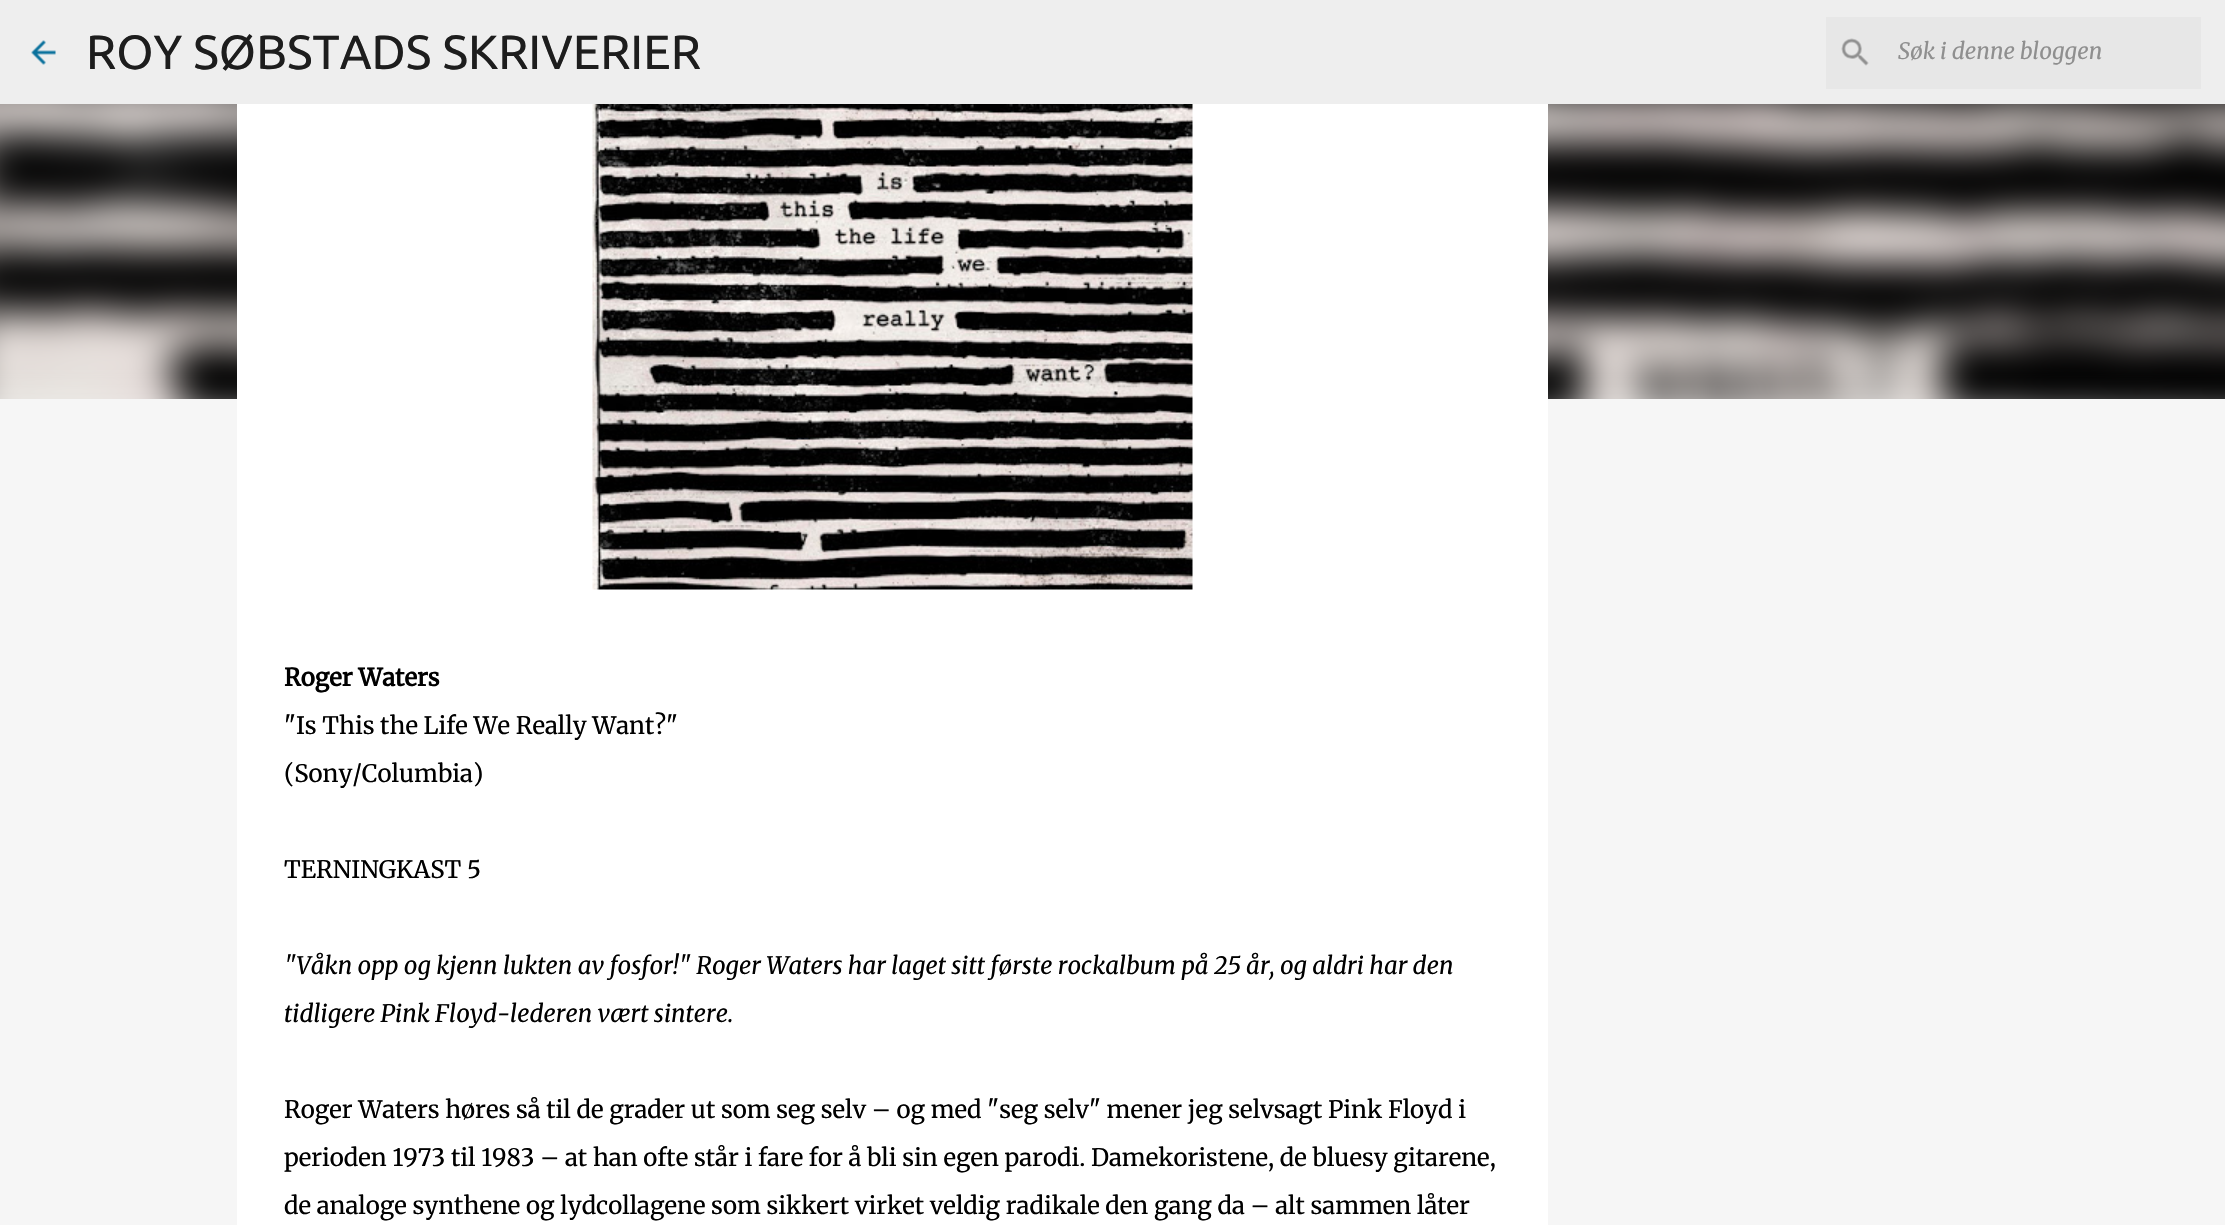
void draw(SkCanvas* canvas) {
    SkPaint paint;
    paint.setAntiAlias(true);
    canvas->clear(0xFFF6F6F6);
    paint.setColor(0xFFEEEEEE);
    canvas->drawRect(SkRect::MakeXYWH(0, 0, 2225, 104), paint);
    canvas->drawImageRect(SkImages::DeferredFromEncodedData(SkData::MakeFromFileName("img1.png")), SkRect::MakeXYWH(31, 40, 25, 25), SkSamplingOptions());
    SkFont font1(fontMgr->matchFamilyStyle("Ubuntu", SkFontStyle::Normal()), 48);
    font1.setSubpixel(true);
    paint.setColor(0xFF1D1D1D);
    canvas->drawString("ROY SØBSTADS SKRIVERIER", 86, 69, font1, paint);
    paint.setColor(0xFFE7E7E7);
    canvas->drawRect(SkRect::MakeXYWH(1826, 17, 375, 72), paint);
    canvas->drawImageRect(SkImages::DeferredFromEncodedData(SkData::MakeFromFileName("img2.png")), SkRect::MakeXYWH(1841, 38, 28, 28), SkSamplingOptions());
    SkFont font2(fontMgr->matchFamilyStyle("Merriweather", SkFontStyle(300, SkFontStyle::kNormal_Width, SkFontStyle::kItalic_Slant)), 22.5f);
    font2.setSubpixel(true);
    paint.setColor(0xFF8F8F8F);
    canvas->drawString("Søk i denne bloggen", 1898, 59, font2, paint);
    canvas->drawImageRect(SkImages::DeferredFromEncodedData(SkData::MakeFromFileName("img4.png")), SkRect::MakeXYWH(0, 104, 2225, 295), SkSamplingOptions());
    paint.setColor(0xFFFFFFFF);
    canvas->drawRect(SkRect::MakeXYWH(237, 104, 1311, 1121), paint);
    canvas->drawImageRect(SkImages::DeferredFromEncodedData(SkData::MakeFromFileName("img3.png")), SkRect::MakeXYWH(592, 104, 601, 486), SkSamplingOptions());
    SkFont font3(fontMgr->matchFamilyStyle("Merriweather", SkFontStyle::Bold()), 24);
    font3.setSubpixel(true);
    paint.setColor(0xFF000000);
    canvas->drawString("Roger Waters", 284, 686, font3, paint);
    SkFont font4(fontMgr->matchFamilyStyle("Merriweather", SkFontStyle(300, SkFontStyle::kNormal_Width, SkFontStyle::kUpright_Slant)), 24);
    font4.setSubpixel(true);
    canvas->drawString("\"Is This the Life We Really Want?\"", 284, 734, font4, paint);
    canvas->drawString("(Sony/Columbia)", 284, 782, font4, paint);
    canvas->drawString("TERNINGKAST 5", 284, 878, font4, paint);
    SkFont font5(fontMgr->matchFamilyStyle("Merriweather", SkFontStyle(300, SkFontStyle::kNormal_Width, SkFontStyle::kItalic_Slant)), 24);
    font5.setSubpixel(true);
    canvas->drawString("\"Våkn opp og kjenn lukten av fosfor!\" Roger Waters har laget sitt første rockalbum på 25 år, og aldri har den", 284, 974, font5, paint);
    canvas->drawString("tidligere Pink Floyd-lederen vært sintere.", 284, 1022, font5, paint);
    canvas->drawString("Roger Waters høres så til de grader ut som seg selv – og med \"seg selv\" mener jeg selvsagt Pink Floyd i", 284, 1118, font4, paint);
    canvas->drawString("perioden 1973 til 1983 – at han ofte står i fare for å bli sin egen parodi. Damekoristene, de bluesy gitarene,", 284, 1166, font4, paint);
    canvas->drawString("de analoge synthene og lydcollagene som sikkert virket veldig radikale den gang da – alt sammen låter", 284, 1214, font4, paint);
}
